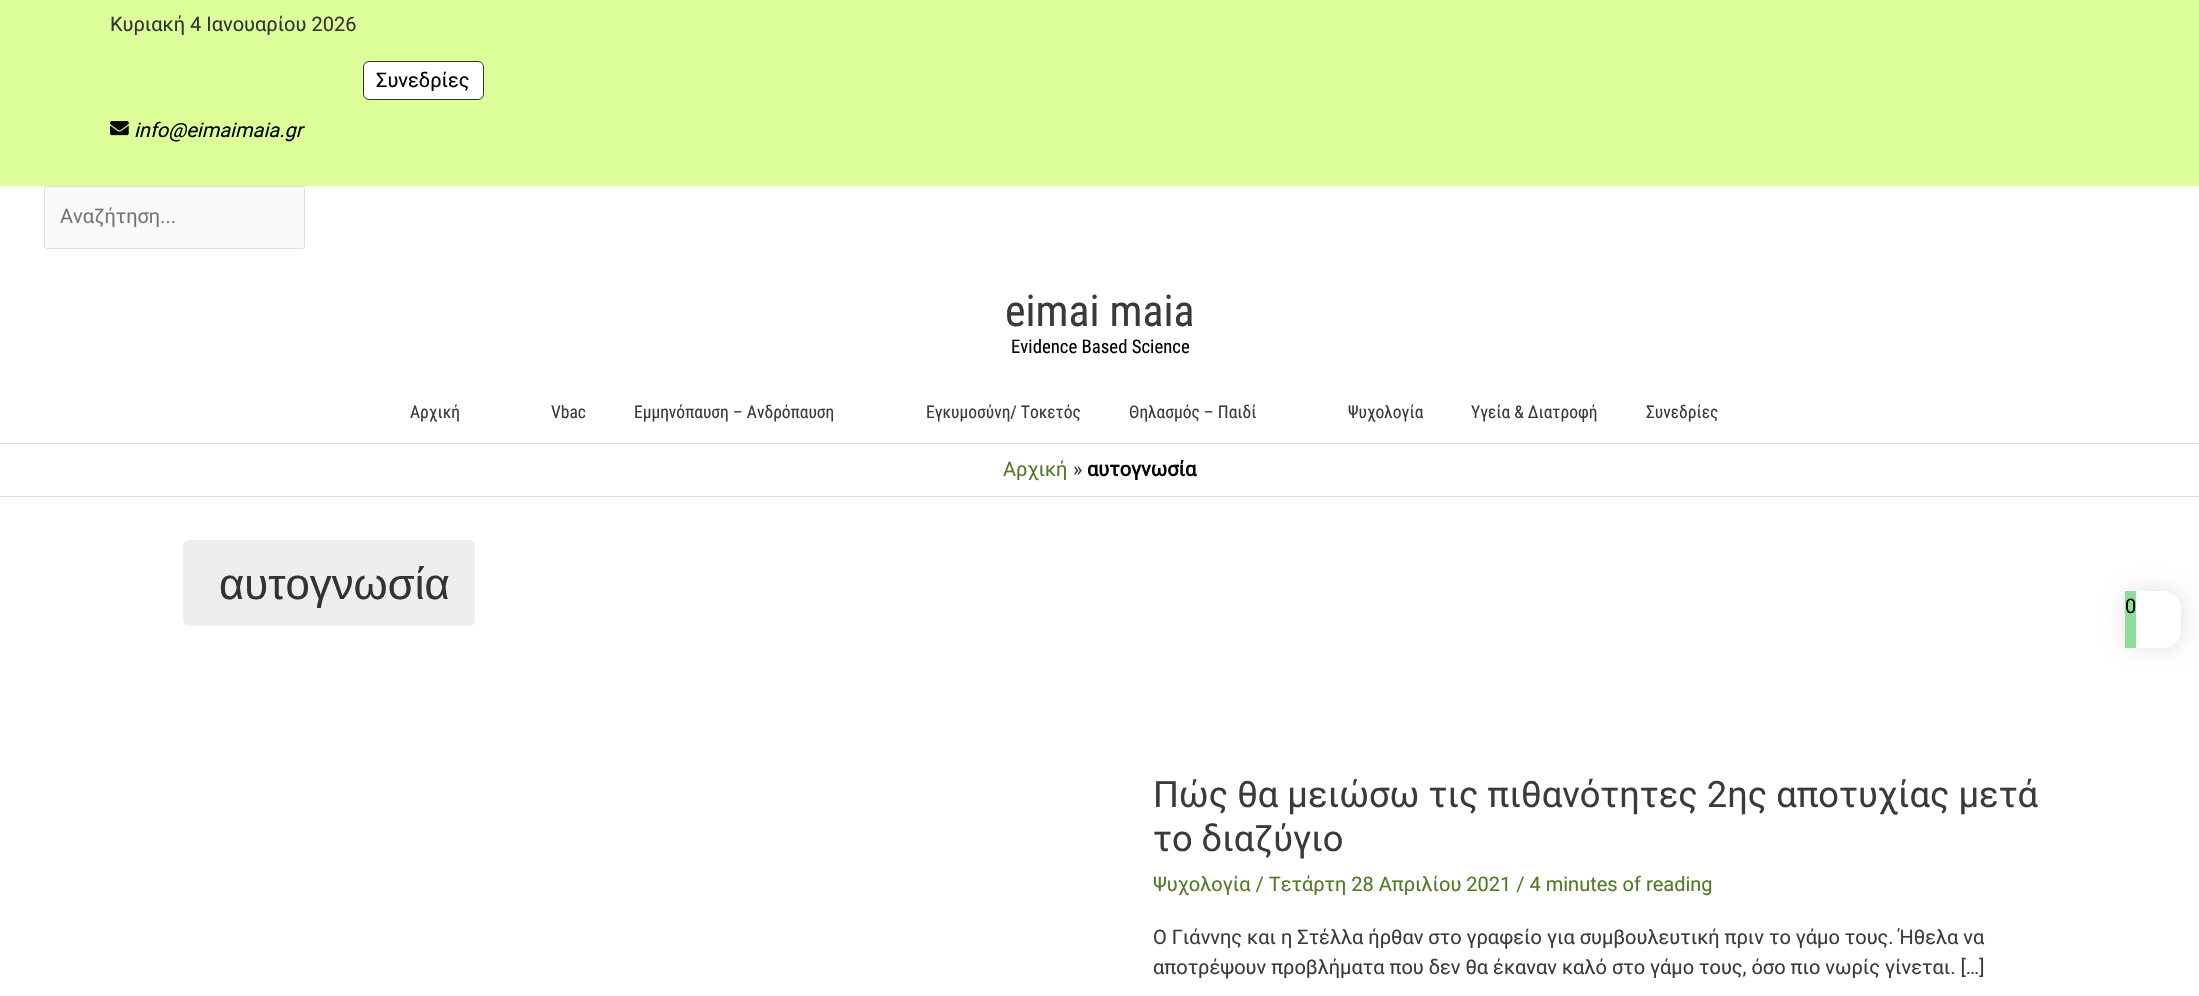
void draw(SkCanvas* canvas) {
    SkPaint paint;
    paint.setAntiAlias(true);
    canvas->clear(0xFFFFFFFF);
    paint.setColor(0xFFDDFF99);
    canvas->drawRect(SkRect::MakeXYWH(0, 0, 2199, 186), paint);
    SkFont font1(fontMgr->matchFamilyStyle("Roboto", SkFontStyle::Normal()), 20);
    font1.setSubpixel(true);
    paint.setColor(0xFF333333);
    canvas->drawString("Κυριακή 4 Ιανουαρίου 2026", 110, 31, font1, paint);
    canvas->drawImageRect(SkImages::DeferredFromEncodedData(SkData::MakeFromFileName("img1.png")), SkRect::MakeXYWH(110, 121, 19, 15), SkSamplingOptions());
    SkFont font2(fontMgr->matchFamilyStyle("Roboto", SkFontStyle::Italic()), 20);
    font2.setSubpixel(true);
    paint.setColor(0xFF000000);
    canvas->drawString("info@eimaimaia.gr", 134, 137, font2, paint);
    paint.setColor(0xFFFFFFFF);
    canvas->drawRoundRect(SkRect::MakeXYWH(363.5f, 61.5f, 120, 38), 5.5f, 5.5f, paint);
    paint.setStyle(SkPaint::kStroke_Style);
    paint.setStrokeWidth(1);
    paint.setColor(0xFF333333);
    canvas->drawRoundRect(SkRect::MakeXYWH(363.5f, 61.5f, 120, 38), 5.5f, 5.5f, paint);
    paint.setStyle(SkPaint::kFill_Style);
    paint.setColor(0xFF000000);
    canvas->drawString("Συνεδρίες", 376, 87, font1, paint);
    paint.setColor(0xFFDDDDDD);
    canvas->drawRect(SkRect::MakeXYWH(0, 443, 2199, 1), paint);
    paint.setColor(0xFFFAFAFA);
    canvas->drawRoundRect(SkRect::MakeXYWH(44.5f, 186.5f, 260, 62), 2, 2, paint);
    paint.setStyle(SkPaint::kStroke_Style);
    paint.setColor(0xFFDDDDDD);
    canvas->drawRoundRect(SkRect::MakeXYWH(44.5f, 186.5f, 260, 62), 2, 2, paint);
    paint.setStyle(SkPaint::kFill_Style);
    paint.setColor(0xFF757575);
    canvas->drawString("Αναζήτηση...", 60, 223, font1, paint);
    SkFont font3(fontMgr->matchFamilyStyle("Roboto Condensed", SkFontStyle::Normal()), 43.75f);
    font3.setSubpixel(true);
    paint.setColor(0xFF3A3A3A);
    canvas->drawString("eimai maia", 1005, 326, font3, paint);
    SkFont font4(fontMgr->matchFamilyStyle("Roboto Condensed", SkFontStyle::Normal()), 18.75f);
    font4.setSubpixel(true);
    paint.setColor(0xFF000000);
    canvas->drawString("Evidence Based Science", 1011, 353, font4, paint);
    SkFont font5(fontMgr->matchFamilyStyle("Roboto Condensed", SkFontStyle::Normal()), 17.5f);
    font5.setSubpixel(true);
    paint.setColor(0xFF3A3A3A);
    canvas->drawString("Αρχική", 410, 418, font5, paint);
    canvas->drawString("Vbac", 551, 418, font5, paint);
    canvas->drawString("Εμμηνόπαυση – Ανδρόπαυση", 634, 418, font5, paint);
    canvas->drawString("Εγκυμοσύνη/ Τοκετός", 926, 418, font5, paint);
    canvas->drawString("Θηλασμός – Παιδί", 1129, 418, font5, paint);
    canvas->drawString("Ψυχολογία", 1348, 418, font5, paint);
    canvas->drawString("Υγεία & Διατροφή", 1471, 418, font5, paint);
    canvas->drawString("Συνεδρίες", 1646, 418, font5, paint);
    paint.setColor(0xFFDDDDDD);
    canvas->drawRect(SkRect::MakeXYWH(0, 496, 2199, 1), paint);
    paint.setColor(0xFF507A24);
    canvas->drawString("Αρχική", 1003, 476, font1, paint);
    paint.setColor(0xFF3A3A3A);
    canvas->drawString("»", 1073, 476, font1, paint);
    SkFont font6(fontMgr->matchFamilyStyle("Roboto", SkFontStyle::Bold()), 20);
    font6.setSubpixel(true);
    paint.setColor(0xFF000000);
    canvas->drawString("αυτογνωσία", 1087, 476, font6, paint);
    paint.setColor(0xFFEEEEEE);
    canvas->drawRoundRect(SkRect::MakeXYWH(183, 540, 292, 86), 6, 6, paint);
    SkFont font7(fontMgr->matchFamilyStyle("Liberation Sans", SkFontStyle::Normal()), 43.75f);
    font7.setSubpixel(true);
    paint.setColor(0xFF333333);
    canvas->drawString("αυτογνωσία", 219, 599, font7, paint);
    SkFont font8(fontMgr->matchFamilyStyle("Roboto", SkFontStyle::Normal()), 36.25f);
    font8.setSubpixel(true);
    paint.setColor(0xFF3A3A3A);
    canvas->drawString("Πώς θα μειώσω τις πιθανότητες 2ης αποτυχίας μετά", 1153, 807, font8, paint);
    canvas->drawString("το διαζύγιο", 1153, 851, font8, paint);
    paint.setColor(0xFF507A24);
    canvas->drawString("Ψυχολογία / Τετάρτη 28 Απριλίου 2021 / 4 minutes of reading", 1153, 891, font1, paint);
    paint.setColor(0xFF3A3A3A);
    canvas->drawString("Ο Γιάννης και η Στέλλα ήρθαν στο γραφείο για συμβουλευτική πριν το γάμο τους. Ήθελα να", 1153, 944, font1, paint);
    canvas->drawString("αποτρέψουν προβλήματα που δεν θα έκαναν καλό στο γάμο τους, όσο πιο νωρίς γίνεται. […]", 1153, 974, font1, paint);
    paint.setColor(0x1A000000);
    paint.setMaskFilter(SkMaskFilter::MakeBlur(kNormal_SkBlurStyle, 9.5f));
    canvas->drawRoundRect(SkRect::MakeXYWH(2123, 589, 61, 61), 20, 20, paint);
    paint.setMaskFilter(nullptr);
    paint.setColor(0xFFFFFFFF);
    canvas->drawRoundRect(SkRect::MakeXYWH(2125, 591, 56, 57), 18, 18, paint);
    paint.setColor(0xFF90DD9B);
    canvas->drawRect(SkRect::MakeXYWH(2125, 591, 11, 57), paint);
    paint.setColor(0xFF000000);
    canvas->drawString("0", 2125, 613, font1, paint);
}
